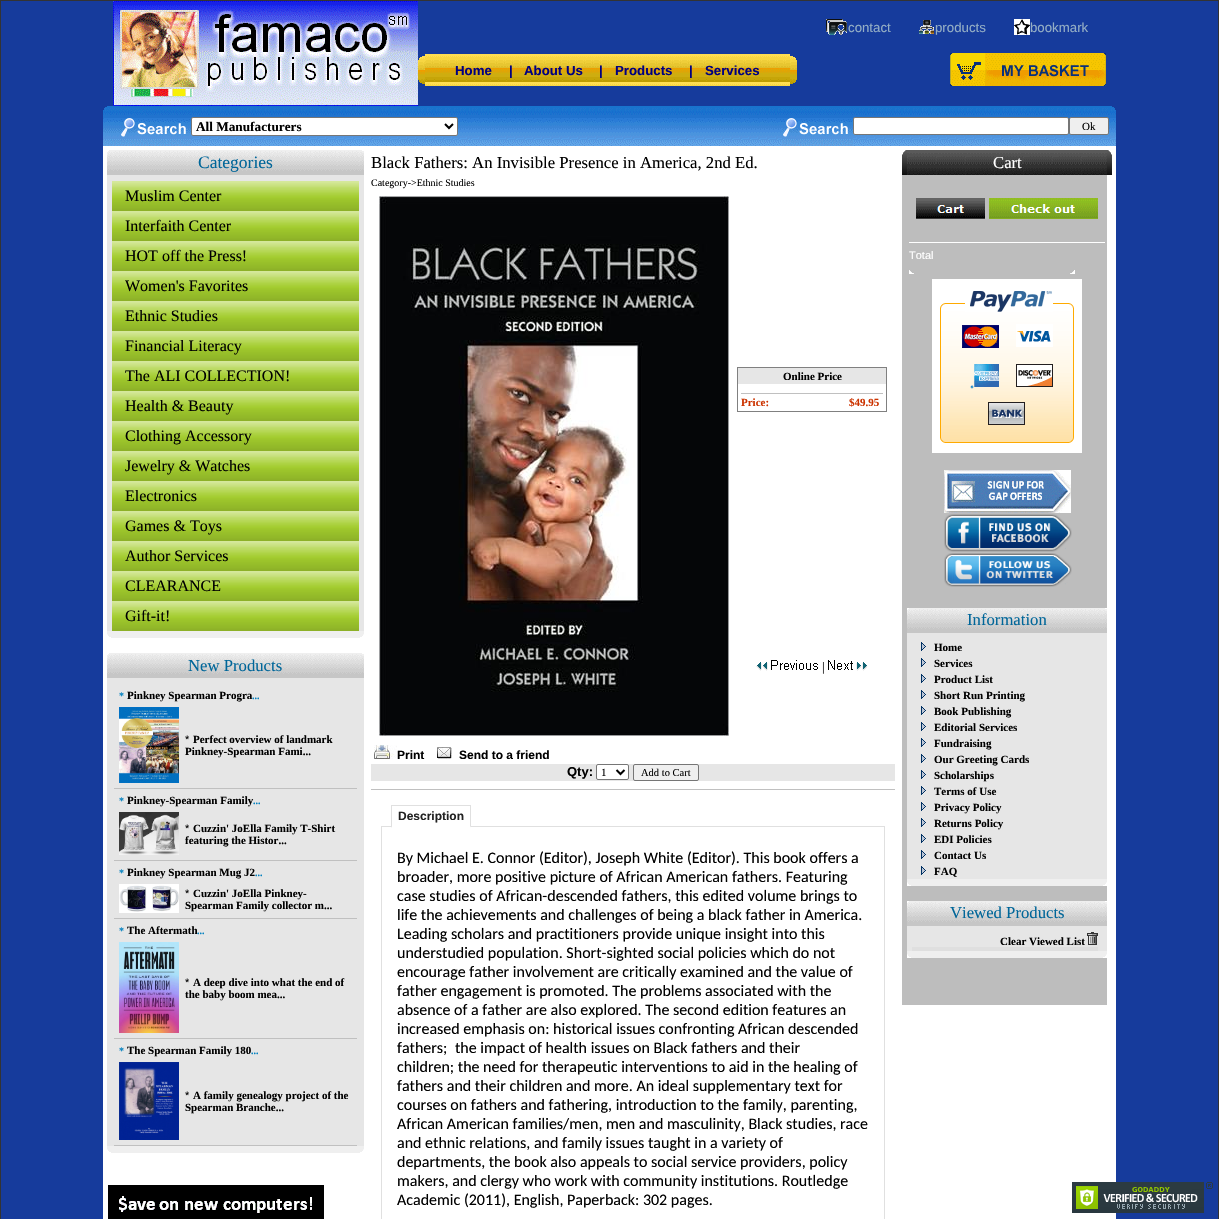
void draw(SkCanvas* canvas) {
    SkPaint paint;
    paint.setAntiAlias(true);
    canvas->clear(0xFF163B9C);
    paint.setStyle(SkPaint::kStroke_Style);
    paint.setStrokeWidth(1);
    paint.setColor(0xFF333333);
    canvas->drawRect(SkRect::MakeXYWH(0.5f, 0.5f, 1218, 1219), paint);
    canvas->drawImageRect(SkImages::DeferredFromEncodedData(SkData::MakeFromFileName("img1.png")), SkRect::MakeXYWH(113, 1, 305, 105), SkSamplingOptions());
    canvas->drawImageRect(SkImages::DeferredFromEncodedData(SkData::MakeFromFileName("img2.png")), SkRect::MakeXYWH(826, 19, 21, 16), SkSamplingOptions());
    SkFont font1(fontMgr->matchFamilyStyle("Liberation Sans", SkFontStyle::Normal()), 13.25f);
    font1.setSubpixel(true);
    paint.setStyle(SkPaint::kFill_Style);
    paint.setColor(0xFF94AEC5);
    canvas->drawString("contact", 848, 32, font1, paint);
    canvas->drawImageRect(SkImages::DeferredFromEncodedData(SkData::MakeFromFileName("img3.png")), SkRect::MakeXYWH(919, 20, 15, 14), SkSamplingOptions());
    canvas->drawString("products", 935, 32, font1, paint);
    canvas->drawImageRect(SkImages::DeferredFromEncodedData(SkData::MakeFromFileName("img4.png")), SkRect::MakeXYWH(1014, 19, 16, 16), SkSamplingOptions());
    canvas->drawString("bookmark", 1030, 32, font1, paint);
    canvas->drawImageRect(SkImages::DeferredFromEncodedData(SkData::MakeFromFileName("img5.png")), SkRect::MakeXYWH(418, 56, 7, 28), SkSamplingOptions());
    canvas->drawImageRect(SkImages::DeferredFromEncodedData(SkData::MakeFromFileName("img6.png")), SkRect::MakeXYWH(425, 54, 365, 32), SkSamplingOptions());
    SkFont font2(fontMgr->matchFamilyStyle("Liberation Sans", SkFontStyle::Bold()), 13.25f);
    font2.setSubpixel(true);
    paint.setColor(0xFF000080);
    canvas->drawString("Home", 455, 75, font2, paint);
    canvas->drawString("|", 509, 75, font2, paint);
    canvas->drawString("About Us", 524, 75, font2, paint);
    canvas->drawString("|", 599, 75, font2, paint);
    canvas->drawString("Products", 615, 75, font2, paint);
    canvas->drawString("|", 689, 75, font2, paint);
    canvas->drawString("Services", 705, 75, font2, paint);
    canvas->drawImageRect(SkImages::DeferredFromEncodedData(SkData::MakeFromFileName("img7.png")), SkRect::MakeXYWH(790, 56, 7, 28), SkSamplingOptions());
    canvas->drawImageRect(SkImages::DeferredFromEncodedData(SkData::MakeFromFileName("img8.png")), SkRect::MakeXYWH(950, 53, 156, 33), SkSamplingOptions());
    canvas->drawImageRect(SkImages::DeferredFromEncodedData(SkData::MakeFromFileName("img9.png")), SkRect::MakeXYWH(103, 106, 88, 40), SkSamplingOptions());
    canvas->drawImageRect(SkImages::DeferredFromEncodedData(SkData::MakeFromFileName("img10.png")), SkRect::MakeXYWH(191, 106, 267, 40), SkSamplingOptions());
    paint.setColor(0xFFFFFFFF);
    canvas->drawRoundRect(SkRect::MakeXYWH(191.5f, 117.5f, 266, 18), 1.5f, 1.5f, paint);
    paint.setStyle(SkPaint::kStroke_Style);
    paint.setColor(0xFF767676);
    canvas->drawRoundRect(SkRect::MakeXYWH(191.5f, 117.5f, 266, 18), 1.5f, 1.5f, paint);
    paint.setStrokeWidth(2);
    paint.setColor(0xFF000000);
    canvas->drawPath(SkPathBuilder().moveTo(445, 124).lineTo(449, 128).lineTo(453, 124).detach(), paint);
    SkFont font3(fontMgr->matchFamilyStyle("Liberation Serif", SkFontStyle::Bold()), 13.25f);
    font3.setSubpixel(true);
    paint.setStyle(SkPaint::kFill_Style);
    canvas->drawString("All Manufacturers", 196, 131, font3, paint);
    canvas->drawImageRect(SkImages::DeferredFromEncodedData(SkData::MakeFromFileName("img11.png")), SkRect::MakeXYWH(458, 106, 12, 40), SkSamplingOptions());
    canvas->drawImageRect(SkImages::DeferredFromEncodedData(SkData::MakeFromFileName("img12.png")), SkRect::MakeXYWH(470, 106, 639, 40), SkSamplingOptions());
    canvas->drawImageRect(SkImages::DeferredFromEncodedData(SkData::MakeFromFileName("img13.png")), SkRect::MakeXYWH(782, 108, 71, 38), SkSamplingOptions());
    paint.setColor(0xFFFFFFFF);
    canvas->drawRoundRect(SkRect::MakeXYWH(853.5f, 117.5f, 215, 17), 1.5f, 1.5f, paint);
    paint.setStyle(SkPaint::kStroke_Style);
    paint.setStrokeWidth(1);
    paint.setColor(0xFF767676);
    canvas->drawRoundRect(SkRect::MakeXYWH(853.5f, 117.5f, 215, 17), 1.5f, 1.5f, paint);
    paint.setStyle(SkPaint::kFill_Style);
    paint.setColor(0xFFEFEFEF);
    canvas->drawRoundRect(SkRect::MakeXYWH(1069.5f, 117.5f, 39, 17), 1.5f, 1.5f, paint);
    paint.setStyle(SkPaint::kStroke_Style);
    paint.setColor(0xFF767676);
    canvas->drawRoundRect(SkRect::MakeXYWH(1069.5f, 117.5f, 39, 17), 1.5f, 1.5f, paint);
    SkFont font4(fontMgr->matchFamilyStyle("Liberation Serif", SkFontStyle::Normal()), 11);
    font4.setSubpixel(true);
    paint.setStyle(SkPaint::kFill_Style);
    paint.setColor(0xFF000000);
    canvas->drawString("Ok", 1082, 130, font4, paint);
    canvas->drawImageRect(SkImages::DeferredFromEncodedData(SkData::MakeFromFileName("img14.png")), SkRect::MakeXYWH(1109, 106, 7, 40), SkSamplingOptions());
    paint.setColor(0xFFFFFFFF);
    canvas->drawRect(SkRect::MakeXYWH(103, 146, 1013, 1073), paint);
    canvas->drawImageRect(SkImages::DeferredFromEncodedData(SkData::MakeFromFileName("img15.png")), SkRect::MakeXYWH(107, 150, 5, 25), SkSamplingOptions());
    canvas->drawImageRect(SkImages::DeferredFromEncodedData(SkData::MakeFromFileName("img16.png")), SkRect::MakeXYWH(107, 150, 4, 5), SkSamplingOptions());
    canvas->drawImageRect(SkImages::DeferredFromEncodedData(SkData::MakeFromFileName("img17.png")), SkRect::MakeXYWH(112, 150, 247, 25), SkSamplingOptions());
    SkFont font5(fontMgr->matchFamilyStyle("Liberation Serif", SkFontStyle::Normal()), 17.5f);
    font5.setSubpixel(true);
    paint.setColor(0xFF006699);
    canvas->drawString("Categories", 198, 168, font5, paint);
    canvas->drawImageRect(SkImages::DeferredFromEncodedData(SkData::MakeFromFileName("img15.png")), SkRect::MakeXYWH(359, 150, 5, 25), SkSamplingOptions());
    canvas->drawImageRect(SkImages::DeferredFromEncodedData(SkData::MakeFromFileName("img18.png")), SkRect::MakeXYWH(362, 150, 2, 3), SkSamplingOptions());
    paint.setColor(0xFFE6E6E6);
    canvas->drawRect(SkRect::MakeXYWH(107, 175, 5, 456), paint);
    canvas->drawRect(SkRect::MakeXYWH(112, 175, 247, 6), paint);
    canvas->drawImageRect(SkImages::DeferredFromEncodedData(SkData::MakeFromFileName("img19.png")), SkRect::MakeXYWH(112, 181, 247, 30), SkSamplingOptions());
    SkFont font6(fontMgr->matchFamilyStyle("Liberation Serif", SkFontStyle::Normal()), 16);
    font6.setSubpixel(true);
    paint.setColor(0xFF000000);
    canvas->drawString("Muslim Center", 125, 201, font6, paint);
    canvas->drawImageRect(SkImages::DeferredFromEncodedData(SkData::MakeFromFileName("img19.png")), SkRect::MakeXYWH(112, 211, 247, 30), SkSamplingOptions());
    canvas->drawString("Interfaith Center", 125, 231, font6, paint);
    canvas->drawImageRect(SkImages::DeferredFromEncodedData(SkData::MakeFromFileName("img19.png")), SkRect::MakeXYWH(112, 241, 247, 30), SkSamplingOptions());
    canvas->drawString("HOT off the Press!", 125, 261, font6, paint);
    canvas->drawImageRect(SkImages::DeferredFromEncodedData(SkData::MakeFromFileName("img19.png")), SkRect::MakeXYWH(112, 271, 247, 30), SkSamplingOptions());
    canvas->drawString("Women's Favorites", 125, 291, font6, paint);
    canvas->drawImageRect(SkImages::DeferredFromEncodedData(SkData::MakeFromFileName("img19.png")), SkRect::MakeXYWH(112, 301, 247, 30), SkSamplingOptions());
    canvas->drawString("Ethnic Studies", 125, 321, font6, paint);
    canvas->drawImageRect(SkImages::DeferredFromEncodedData(SkData::MakeFromFileName("img19.png")), SkRect::MakeXYWH(112, 331, 247, 30), SkSamplingOptions());
    canvas->drawString("Financial Literacy", 125, 351, font6, paint);
    canvas->drawImageRect(SkImages::DeferredFromEncodedData(SkData::MakeFromFileName("img19.png")), SkRect::MakeXYWH(112, 361, 247, 30), SkSamplingOptions());
    canvas->drawString("The ALI COLLECTION!", 125, 381, font6, paint);
    canvas->drawImageRect(SkImages::DeferredFromEncodedData(SkData::MakeFromFileName("img19.png")), SkRect::MakeXYWH(112, 391, 247, 30), SkSamplingOptions());
    canvas->drawString("Health & Beauty", 125, 411, font6, paint);
    canvas->drawImageRect(SkImages::DeferredFromEncodedData(SkData::MakeFromFileName("img19.png")), SkRect::MakeXYWH(112, 421, 247, 30), SkSamplingOptions());
    canvas->drawString("Clothing Accessory", 125, 441, font6, paint);
    canvas->drawImageRect(SkImages::DeferredFromEncodedData(SkData::MakeFromFileName("img19.png")), SkRect::MakeXYWH(112, 451, 247, 30), SkSamplingOptions());
    canvas->drawString("Jewelry & Watches", 125, 471, font6, paint);
    canvas->drawImageRect(SkImages::DeferredFromEncodedData(SkData::MakeFromFileName("img19.png")), SkRect::MakeXYWH(112, 481, 247, 30), SkSamplingOptions());
    canvas->drawString("Electronics", 125, 501, font6, paint);
    canvas->drawImageRect(SkImages::DeferredFromEncodedData(SkData::MakeFromFileName("img19.png")), SkRect::MakeXYWH(112, 511, 247, 30), SkSamplingOptions());
    canvas->drawString("Games & Toys", 125, 531, font6, paint);
    canvas->drawImageRect(SkImages::DeferredFromEncodedData(SkData::MakeFromFileName("img19.png")), SkRect::MakeXYWH(112, 541, 247, 30), SkSamplingOptions());
    canvas->drawString("Author Services", 125, 561, font6, paint);
    canvas->drawImageRect(SkImages::DeferredFromEncodedData(SkData::MakeFromFileName("img19.png")), SkRect::MakeXYWH(112, 571, 247, 30), SkSamplingOptions());
    canvas->drawString("CLEARANCE", 125, 591, font6, paint);
    canvas->drawImageRect(SkImages::DeferredFromEncodedData(SkData::MakeFromFileName("img19.png")), SkRect::MakeXYWH(112, 601, 247, 30), SkSamplingOptions());
    canvas->drawString("Gift-it!", 125, 621, font6, paint);
    paint.setColor(0xFFE6E6E6);
    canvas->drawRect(SkRect::MakeXYWH(359, 175, 5, 456), paint);
    canvas->drawImageRect(SkImages::DeferredFromEncodedData(SkData::MakeFromFileName("img20.png")), SkRect::MakeXYWH(107, 631, 5, 7), SkSamplingOptions());
    paint.setColor(0xFFEFEFEF);
    canvas->drawRect(SkRect::MakeXYWH(112, 631, 247, 7), paint);
    canvas->drawImageRect(SkImages::DeferredFromEncodedData(SkData::MakeFromFileName("img21.png")), SkRect::MakeXYWH(359, 631, 5, 7), SkSamplingOptions());
    canvas->drawImageRect(SkImages::DeferredFromEncodedData(SkData::MakeFromFileName("img15.png")), SkRect::MakeXYWH(107, 653, 5, 25), SkSamplingOptions());
    canvas->drawImageRect(SkImages::DeferredFromEncodedData(SkData::MakeFromFileName("img16.png")), SkRect::MakeXYWH(107, 653, 4, 5), SkSamplingOptions());
    canvas->drawImageRect(SkImages::DeferredFromEncodedData(SkData::MakeFromFileName("img17.png")), SkRect::MakeXYWH(112, 653, 247, 25), SkSamplingOptions());
    SkFont font7(fontMgr->matchFamilyStyle("Liberation Serif", SkFontStyle::Normal()), 16.7f);
    font7.setSubpixel(true);
    paint.setColor(0xFF006699);
    canvas->drawString("New Products", 188, 671, font7, paint);
    canvas->drawImageRect(SkImages::DeferredFromEncodedData(SkData::MakeFromFileName("img15.png")), SkRect::MakeXYWH(359, 653, 5, 25), SkSamplingOptions());
    canvas->drawImageRect(SkImages::DeferredFromEncodedData(SkData::MakeFromFileName("img18.png")), SkRect::MakeXYWH(362, 653, 2, 3), SkSamplingOptions());
    paint.setColor(0xFFE6E6E6);
    canvas->drawRect(SkRect::MakeXYWH(107, 678, 257, 468), paint);
    SkFont font8(fontMgr->matchFamilyStyle("Liberation Serif", SkFontStyle::Bold()), 10);
    font8.setSubpixel(true);
    paint.setColor(0xFF0080C0);
    canvas->drawString("*", 119, 699, font8, paint);
    SkFont font9(fontMgr->matchFamilyStyle("Liberation Serif", SkFontStyle::Bold()), 11);
    font9.setSubpixel(true);
    paint.setColor(0xFF000000);
    canvas->drawString("Pinkney Spearman Progra", 127, 699, font9, paint);
    paint.setColor(0xFF0080C0);
    canvas->drawString("...", 252, 699, font8, paint);
    canvas->drawImageRect(SkImages::DeferredFromEncodedData(SkData::MakeFromFileName("img22.png")), SkRect::MakeXYWH(119, 707, 60, 76), SkSamplingOptions());
    SkFont font10(fontMgr->matchFamilyStyle("Liberation Sans", SkFontStyle::Normal()), 11);
    font10.setSubpixel(true);
    paint.setColor(0xFF000000);
    canvas->drawString("*", 185, 743, font10, paint);
    canvas->drawString("Perfect overview of landmark", 193, 743, font9, paint);
    canvas->drawString("Pinkney-Spearman Fami...", 185, 755, font9, paint);
    paint.setColor(0xFFC0C0C0);
    canvas->drawRect(SkRect::MakeXYWH(114, 788, 243, 1), paint);
    paint.setColor(0xFF0080C0);
    canvas->drawString("*", 119, 804, font8, paint);
    paint.setColor(0xFF000000);
    canvas->drawString("Pinkney-Spearman Family", 127, 804, font9, paint);
    paint.setColor(0xFF0080C0);
    canvas->drawString("...", 253, 804, font8, paint);
    canvas->drawImageRect(SkImages::DeferredFromEncodedData(SkData::MakeFromFileName("img23.png")), SkRect::MakeXYWH(119, 812, 60, 43), SkSamplingOptions());
    paint.setColor(0xFF000000);
    canvas->drawString("*", 185, 832, font10, paint);
    canvas->drawString("Cuzzin' JoElla Family T-Shirt", 193, 832, font9, paint);
    canvas->drawString("featuring the Histor...", 185, 844, font9, paint);
    paint.setColor(0xFFC0C0C0);
    canvas->drawRect(SkRect::MakeXYWH(114, 860, 243, 1), paint);
    paint.setColor(0xFF0080C0);
    canvas->drawString("*", 119, 876, font8, paint);
    paint.setColor(0xFF000000);
    canvas->drawString("Pinkney Spearman Mug J2", 127, 876, font9, paint);
    paint.setColor(0xFF0080C0);
    canvas->drawString("...", 255, 876, font8, paint);
    canvas->drawImageRect(SkImages::DeferredFromEncodedData(SkData::MakeFromFileName("img24.png")), SkRect::MakeXYWH(119, 884, 60, 29), SkSamplingOptions());
    paint.setColor(0xFF000000);
    canvas->drawString("*", 185, 897, font10, paint);
    canvas->drawString("Cuzzin' JoElla Pinkney-", 193, 897, font9, paint);
    canvas->drawString("Spearman Family collector m...", 185, 909, font9, paint);
    paint.setColor(0xFFC0C0C0);
    canvas->drawRect(SkRect::MakeXYWH(114, 918, 243, 1), paint);
    paint.setColor(0xFF0080C0);
    canvas->drawString("*", 119, 934, font8, paint);
    paint.setColor(0xFF000000);
    canvas->drawString("The Aftermath", 127, 934, font9, paint);
    paint.setColor(0xFF0080C0);
    canvas->drawString("...", 197, 934, font8, paint);
    canvas->drawImageRect(SkImages::DeferredFromEncodedData(SkData::MakeFromFileName("img25.png")), SkRect::MakeXYWH(119, 942, 60, 91), SkSamplingOptions());
    paint.setColor(0xFF000000);
    canvas->drawString("*", 185, 986, font10, paint);
    canvas->drawString("A deep dive into what the end of", 193, 986, font9, paint);
    canvas->drawString("the baby boom mea...", 185, 998, font9, paint);
    paint.setColor(0xFFC0C0C0);
    canvas->drawRect(SkRect::MakeXYWH(114, 1038, 243, 1), paint);
    paint.setColor(0xFF0080C0);
    canvas->drawString("*", 119, 1054, font8, paint);
    paint.setColor(0xFF000000);
    canvas->drawString("The Spearman Family 180", 127, 1054, font9, paint);
    paint.setColor(0xFF0080C0);
    canvas->drawString("...", 251, 1054, font8, paint);
    canvas->drawImageRect(SkImages::DeferredFromEncodedData(SkData::MakeFromFileName("img26.png")), SkRect::MakeXYWH(119, 1062, 60, 78), SkSamplingOptions());
    paint.setColor(0xFF000000);
    canvas->drawString("*", 185, 1099, font10, paint);
    canvas->drawString("A family genealogy project of the", 193, 1099, font9, paint);
    canvas->drawString("Spearman Branche...", 185, 1111, font9, paint);
    paint.setColor(0xFFC0C0C0);
    canvas->drawRect(SkRect::MakeXYWH(114, 1145, 243, 1), paint);
    canvas->drawImageRect(SkImages::DeferredFromEncodedData(SkData::MakeFromFileName("img20.png")), SkRect::MakeXYWH(107, 1146, 5, 7), SkSamplingOptions());
    paint.setColor(0xFFEFEFEF);
    canvas->drawRect(SkRect::MakeXYWH(112, 1146, 247, 7), paint);
    canvas->drawImageRect(SkImages::DeferredFromEncodedData(SkData::MakeFromFileName("img21.png")), SkRect::MakeXYWH(359, 1146, 5, 7), SkSamplingOptions());
    canvas->drawImageRect(SkImages::DeferredFromEncodedData(SkData::MakeFromFileName("img27.png")), SkRect::MakeXYWH(108, 1185, 216, 34), SkSamplingOptions());
    paint.setColor(0xFF000000);
    canvas->drawString("Black Fathers: An Invisible Presence in America, 2nd Ed.", 371, 168, font7, paint);
    SkFont font11(fontMgr->matchFamilyStyle("Liberation Serif", SkFontStyle::Normal()), 10);
    font11.setSubpixel(true);
    canvas->drawString("Category->Ethnic Studies", 371, 186, font11, paint);
    canvas->drawImageRect(SkImages::DeferredFromEncodedData(SkData::MakeFromFileName("img28.png")), SkRect::MakeXYWH(379, 196, 350, 540), SkSamplingOptions());
    paint.setStyle(SkPaint::kStroke_Style);
    paint.setColor(0xFF808080);
    canvas->drawRect(SkRect::MakeXYWH(737.5f, 367.5f, 149, 44), paint);
    paint.setStyle(SkPaint::kFill_Style);
    paint.setColor(0xFFE6E6E6);
    canvas->drawRect(SkRect::MakeXYWH(738, 368, 148, 16), paint);
    paint.setColor(0xFF000000);
    canvas->drawString("Online Price", 783, 380, font9, paint);
    paint.setColor(0xFFC0C0C0);
    canvas->drawRect(SkRect::MakeXYWH(741, 393, 142, 1), paint);
    paint.setColor(0xFFCC3300);
    canvas->drawString("Price:", 741, 406, font9, paint);
    canvas->drawString("$49.95", 849, 406, font9, paint);
    canvas->drawImageRect(SkImages::DeferredFromEncodedData(SkData::MakeFromFileName("img29.png")), SkRect::MakeXYWH(756, 660, 62, 11), SkSamplingOptions());
    SkFont font12(fontMgr->matchFamilyStyle("Liberation Serif", SkFontStyle::Normal()), 13);
    font12.setSubpixel(true);
    paint.setColor(0xFF000000);
    canvas->drawString("|", 822, 671, font12, paint);
    canvas->drawImageRect(SkImages::DeferredFromEncodedData(SkData::MakeFromFileName("img30.png")), SkRect::MakeXYWH(828, 660, 40, 11), SkSamplingOptions());
    canvas->drawImageRect(SkImages::DeferredFromEncodedData(SkData::MakeFromFileName("img31.png")), SkRect::MakeXYWH(374, 745, 23, 14), SkSamplingOptions());
    SkFont font13(fontMgr->matchFamilyStyle("Liberation Sans", SkFontStyle::Bold()), 12);
    font13.setSubpixel(true);
    canvas->drawString("Print", 397, 759, font13, paint);
    canvas->drawImageRect(SkImages::DeferredFromEncodedData(SkData::MakeFromFileName("img32.png")), SkRect::MakeXYWH(437, 747, 15, 12), SkSamplingOptions());
    canvas->drawString("Send to a friend", 459, 759, font13, paint);
    paint.setColor(0xFFE6E6E6);
    canvas->drawRect(SkRect::MakeXYWH(371, 764, 524, 17), paint);
    SkFont font14(fontMgr->matchFamilyStyle("Liberation Sans", SkFontStyle::Bold()), 13);
    font14.setSubpixel(true);
    paint.setColor(0xFF000000);
    canvas->drawString("Qty:", 567, 776, font14, paint);
    paint.setColor(0xFFFFFFFF);
    canvas->drawRoundRect(SkRect::MakeXYWH(596.5f, 764.5f, 32, 15), 1.5f, 1.5f, paint);
    paint.setStyle(SkPaint::kStroke_Style);
    paint.setColor(0xFF767676);
    canvas->drawRoundRect(SkRect::MakeXYWH(596.5f, 764.5f, 32, 15), 1.5f, 1.5f, paint);
    paint.setStrokeWidth(2);
    paint.setColor(0xFF000000);
    canvas->drawPath(SkPathBuilder().moveTo(616.5f, 770).lineTo(620.5f, 774).lineTo(624.5f, 770).detach(), paint);
    paint.setStyle(SkPaint::kFill_Style);
    canvas->drawString("1", 601, 776, font4, paint);
    paint.setColor(0xFFEFEFEF);
    canvas->drawRoundRect(SkRect::MakeXYWH(633.5f, 764.5f, 65, 16), 1.5f, 1.5f, paint);
    paint.setStyle(SkPaint::kStroke_Style);
    paint.setStrokeWidth(1);
    paint.setColor(0xFF767676);
    canvas->drawRoundRect(SkRect::MakeXYWH(633.5f, 764.5f, 65, 16), 1.5f, 1.5f, paint);
    SkFont font15(fontMgr->matchFamilyStyle("Liberation Serif", SkFontStyle::Normal()), 10.5f);
    font15.setSubpixel(true);
    paint.setStyle(SkPaint::kFill_Style);
    paint.setColor(0xFF000000);
    canvas->drawString("Add to Cart", 641, 776, font15, paint);
    paint.setColor(0xFFC0C0C0);
    canvas->drawRect(SkRect::MakeXYWH(371, 789, 524, 1), paint);
    paint.setColor(0xFF222222);
    canvas->drawString("Description", 398, 820, font13, paint);
    paint.setColor(0xFFE0E0E0);
    canvas->drawRect(SkRect::MakeXYWH(391, 805, 80, 1), paint);
    paint.setStyle(SkPaint::kStroke_Style);
    canvas->drawRect(SkRect::MakeXYWH(381.5f, 826.5f, 503, 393), paint);
    paint.setStyle(SkPaint::kFill_Style);
    canvas->drawPath(SkPathBuilder().moveTo(471, 805).lineTo(471, 828).lineTo(470, 826).lineTo(470, 806).close().detach(), paint);
    paint.setColor(0xFFFFFFFF);
    canvas->drawPath(SkPathBuilder().moveTo(471, 828).lineTo(391, 828).lineTo(392, 826).lineTo(470, 826).close().detach(), paint);
    paint.setColor(0xFFE0E0E0);
    canvas->drawPath(SkPathBuilder().moveTo(391, 828).lineTo(391, 805).lineTo(392, 806).lineTo(392, 826).close().detach(), paint);
    SkFont font16(fontMgr->matchFamilyStyle("Carlito", SkFontStyle::Normal()), 16);
    font16.setSubpixel(true);
    paint.setColor(0xFF000000);
    canvas->drawString("By Michael E. Connor (Editor), Joseph White (Editor). This book offers a", 397, 863, font16, paint);
    canvas->drawString("broader, more positive picture of African American fathers. Featuring", 397, 882, font16, paint);
    canvas->drawString("case studies of African-descended fathers, this edited volume brings to", 397, 901, font16, paint);
    canvas->drawString("life the achievements and challenges of being a black father in America.", 397, 920, font16, paint);
    canvas->drawString("Leading scholars and practitioners provide unique insight into this", 397, 939, font16, paint);
    canvas->drawString("understudied population. Short-sighted social policies which do not", 397, 958, font16, paint);
    canvas->drawString("encourage father involvement are critically examined and the value of", 397, 977, font16, paint);
    canvas->drawString("father engagement is promoted. The problems associated with the", 397, 996, font16, paint);
    canvas->drawString("absence of a father are also explored. The second edition features an", 397, 1015, font16, paint);
    canvas->drawString("increased emphasis on: historical issues confronting African descended", 397, 1034, font16, paint);
    canvas->drawString("fathers;", 397, 1053, font16, paint);
    canvas->drawString("the impact of health issues on Black fathers and their", 455, 1053, font16, paint);
    canvas->drawString("children; the need for therapeutic interventions to aid in the healing of", 397, 1072, font16, paint);
    canvas->drawString("fathers and their children and more. An ideal supplementary text for", 397, 1091, font16, paint);
    canvas->drawString("courses on fathers and fathering, introduction to the family, parenting,", 397, 1110, font16, paint);
    canvas->drawString("African American families/men, men and masculinity, Black studies, race", 397, 1129, font16, paint);
    canvas->drawString("and ethnic relations, and family issues taught in a variety of", 397, 1148, font16, paint);
    canvas->drawString("departments, the book also appeals to social service providers, policy", 397, 1167, font16, paint);
    canvas->drawString("makers, and clergy who work with community institutions. Routledge", 397, 1186, font16, paint);
    canvas->drawString("Academic (2011), English, Paperback: 302 pages.", 397, 1205, font16, paint);
    canvas->drawImageRect(SkImages::DeferredFromEncodedData(SkData::MakeFromFileName("img33.png")), SkRect::MakeXYWH(902, 150, 5, 25), SkSamplingOptions());
    canvas->drawImageRect(SkImages::DeferredFromEncodedData(SkData::MakeFromFileName("img34.png")), SkRect::MakeXYWH(907, 150, 200, 25), SkSamplingOptions());
    paint.setColor(0xFFFFFFFF);
    canvas->drawString("Cart", 993, 168, font7, paint);
    canvas->drawImageRect(SkImages::DeferredFromEncodedData(SkData::MakeFromFileName("img35.png")), SkRect::MakeXYWH(1107, 150, 5, 25), SkSamplingOptions());
    paint.setColor(0xFFBDBDBD);
    canvas->drawRect(SkRect::MakeXYWH(902, 175, 205, 830), paint);
    canvas->drawImageRect(SkImages::DeferredFromEncodedData(SkData::MakeFromFileName("img36.png")), SkRect::MakeXYWH(916, 198, 69, 21), SkSamplingOptions());
    canvas->drawImageRect(SkImages::DeferredFromEncodedData(SkData::MakeFromFileName("img37.png")), SkRect::MakeXYWH(989, 198, 109, 21), SkSamplingOptions());
    paint.setColor(0xFFFFFFFF);
    canvas->drawRect(SkRect::MakeXYWH(909, 242, 196, 1), paint);
    canvas->drawString("Total", 909, 259, font10, paint);
    canvas->drawImageRect(SkImages::DeferredFromEncodedData(SkData::MakeFromFileName("img38.png")), SkRect::MakeXYWH(909, 270, 5, 4), SkSamplingOptions());
    canvas->drawImageRect(SkImages::DeferredFromEncodedData(SkData::MakeFromFileName("img39.png")), SkRect::MakeXYWH(1070, 270, 5, 4), SkSamplingOptions());
    canvas->drawImageRect(SkImages::DeferredFromEncodedData(SkData::MakeFromFileName("img40.png")), SkRect::MakeXYWH(932, 279, 150, 174), SkSamplingOptions());
    canvas->drawImageRect(SkImages::DeferredFromEncodedData(SkData::MakeFromFileName("img41.png")), SkRect::MakeXYWH(944, 470, 127, 43), SkSamplingOptions());
    canvas->drawImageRect(SkImages::DeferredFromEncodedData(SkData::MakeFromFileName("img42.png")), SkRect::MakeXYWH(944, 514, 128, 38), SkSamplingOptions());
    canvas->drawImageRect(SkImages::DeferredFromEncodedData(SkData::MakeFromFileName("img43.png")), SkRect::MakeXYWH(944, 553, 128, 34), SkSamplingOptions());
    canvas->drawImageRect(SkImages::DeferredFromEncodedData(SkData::MakeFromFileName("img15.png")), SkRect::MakeXYWH(907, 608, 5, 25), SkSamplingOptions());
    canvas->drawImageRect(SkImages::DeferredFromEncodedData(SkData::MakeFromFileName("img16.png")), SkRect::MakeXYWH(907, 608, 4, 5), SkSamplingOptions());
    canvas->drawImageRect(SkImages::DeferredFromEncodedData(SkData::MakeFromFileName("img44.png")), SkRect::MakeXYWH(912, 608, 190, 25), SkSamplingOptions());
    paint.setColor(0xFF006699);
    canvas->drawString("Information", 967, 625, font7, paint);
    canvas->drawImageRect(SkImages::DeferredFromEncodedData(SkData::MakeFromFileName("img15.png")), SkRect::MakeXYWH(1102, 608, 5, 25), SkSamplingOptions());
    canvas->drawImageRect(SkImages::DeferredFromEncodedData(SkData::MakeFromFileName("img18.png")), SkRect::MakeXYWH(1105, 608, 2, 3), SkSamplingOptions());
    paint.setColor(0xFFE6E6E6);
    canvas->drawRect(SkRect::MakeXYWH(907, 633, 200, 246), paint);
    canvas->drawImageRect(SkImages::DeferredFromEncodedData(SkData::MakeFromFileName("img45.png")), SkRect::MakeXYWH(921, 642, 5, 9), SkSamplingOptions());
    paint.setColor(0xFF000000);
    canvas->drawString("Home", 934, 651, font9, paint);
    canvas->drawImageRect(SkImages::DeferredFromEncodedData(SkData::MakeFromFileName("img45.png")), SkRect::MakeXYWH(921, 658, 5, 9), SkSamplingOptions());
    canvas->drawString("Services", 934, 667, font9, paint);
    canvas->drawImageRect(SkImages::DeferredFromEncodedData(SkData::MakeFromFileName("img45.png")), SkRect::MakeXYWH(921, 674, 5, 9), SkSamplingOptions());
    canvas->drawString("Product List", 934, 683, font9, paint);
    canvas->drawImageRect(SkImages::DeferredFromEncodedData(SkData::MakeFromFileName("img45.png")), SkRect::MakeXYWH(921, 690, 5, 9), SkSamplingOptions());
    canvas->drawString("Short Run Printing", 934, 699, font9, paint);
    canvas->drawImageRect(SkImages::DeferredFromEncodedData(SkData::MakeFromFileName("img45.png")), SkRect::MakeXYWH(921, 706, 5, 9), SkSamplingOptions());
    canvas->drawString("Book Publishing", 934, 715, font9, paint);
    canvas->drawImageRect(SkImages::DeferredFromEncodedData(SkData::MakeFromFileName("img45.png")), SkRect::MakeXYWH(921, 722, 5, 9), SkSamplingOptions());
    canvas->drawString("Editorial Services", 934, 731, font9, paint);
    canvas->drawImageRect(SkImages::DeferredFromEncodedData(SkData::MakeFromFileName("img45.png")), SkRect::MakeXYWH(921, 738, 5, 9), SkSamplingOptions());
    canvas->drawString("Fundraising", 934, 747, font9, paint);
    canvas->drawImageRect(SkImages::DeferredFromEncodedData(SkData::MakeFromFileName("img45.png")), SkRect::MakeXYWH(921, 754, 5, 9), SkSamplingOptions());
    canvas->drawString("Our Greeting Cards", 934, 763, font9, paint);
    canvas->drawImageRect(SkImages::DeferredFromEncodedData(SkData::MakeFromFileName("img45.png")), SkRect::MakeXYWH(921, 770, 5, 9), SkSamplingOptions());
    canvas->drawString("Scholarships", 934, 779, font9, paint);
    canvas->drawImageRect(SkImages::DeferredFromEncodedData(SkData::MakeFromFileName("img45.png")), SkRect::MakeXYWH(921, 786, 5, 9), SkSamplingOptions());
    canvas->drawString("Terms of Use", 934, 795, font9, paint);
    canvas->drawImageRect(SkImages::DeferredFromEncodedData(SkData::MakeFromFileName("img45.png")), SkRect::MakeXYWH(921, 802, 5, 9), SkSamplingOptions());
    canvas->drawString("Privacy Policy", 934, 811, font9, paint);
    canvas->drawImageRect(SkImages::DeferredFromEncodedData(SkData::MakeFromFileName("img45.png")), SkRect::MakeXYWH(921, 818, 5, 9), SkSamplingOptions());
    canvas->drawString("Returns Policy", 934, 827, font9, paint);
    canvas->drawImageRect(SkImages::DeferredFromEncodedData(SkData::MakeFromFileName("img45.png")), SkRect::MakeXYWH(921, 834, 5, 9), SkSamplingOptions());
    canvas->drawString("EDI Policies", 934, 843, font9, paint);
    canvas->drawImageRect(SkImages::DeferredFromEncodedData(SkData::MakeFromFileName("img45.png")), SkRect::MakeXYWH(921, 850, 5, 9), SkSamplingOptions());
    canvas->drawString("Contact Us", 934, 859, font9, paint);
    canvas->drawImageRect(SkImages::DeferredFromEncodedData(SkData::MakeFromFileName("img45.png")), SkRect::MakeXYWH(921, 866, 5, 9), SkSamplingOptions());
    canvas->drawString("FAQ", 934, 875, font9, paint);
    canvas->drawImageRect(SkImages::DeferredFromEncodedData(SkData::MakeFromFileName("img20.png")), SkRect::MakeXYWH(907, 879, 5, 7), SkSamplingOptions());
    paint.setColor(0xFFEFEFEF);
    canvas->drawRect(SkRect::MakeXYWH(912, 879, 190, 7), paint);
    canvas->drawImageRect(SkImages::DeferredFromEncodedData(SkData::MakeFromFileName("img21.png")), SkRect::MakeXYWH(1102, 879, 5, 7), SkSamplingOptions());
    canvas->drawImageRect(SkImages::DeferredFromEncodedData(SkData::MakeFromFileName("img15.png")), SkRect::MakeXYWH(907, 901, 5, 25), SkSamplingOptions());
    canvas->drawImageRect(SkImages::DeferredFromEncodedData(SkData::MakeFromFileName("img16.png")), SkRect::MakeXYWH(907, 901, 4, 5), SkSamplingOptions());
    canvas->drawImageRect(SkImages::DeferredFromEncodedData(SkData::MakeFromFileName("img44.png")), SkRect::MakeXYWH(912, 901, 190, 25), SkSamplingOptions());
    paint.setColor(0xFF006699);
    canvas->drawString("Viewed Products", 950, 918, font7, paint);
    canvas->drawImageRect(SkImages::DeferredFromEncodedData(SkData::MakeFromFileName("img15.png")), SkRect::MakeXYWH(1102, 901, 5, 25), SkSamplingOptions());
    canvas->drawImageRect(SkImages::DeferredFromEncodedData(SkData::MakeFromFileName("img18.png")), SkRect::MakeXYWH(1105, 901, 2, 3), SkSamplingOptions());
    paint.setColor(0xFFE6E6E6);
    canvas->drawRect(SkRect::MakeXYWH(907, 926, 200, 25), paint);
    paint.setColor(0xFF000000);
    canvas->drawString("Clear Viewed List", 1000, 945, font9, paint);
    canvas->drawImageRect(SkImages::DeferredFromEncodedData(SkData::MakeFromFileName("img46.png")), SkRect::MakeXYWH(1087, 932, 11, 13), SkSamplingOptions());
    paint.setColor(0xFFDFDFDF);
    canvas->drawRect(SkRect::MakeXYWH(912, 947, 186, 4), paint);
    canvas->drawImageRect(SkImages::DeferredFromEncodedData(SkData::MakeFromFileName("img20.png")), SkRect::MakeXYWH(907, 951, 5, 7), SkSamplingOptions());
    paint.setColor(0xFFEFEFEF);
    canvas->drawRect(SkRect::MakeXYWH(912, 951, 190, 7), paint);
    canvas->drawImageRect(SkImages::DeferredFromEncodedData(SkData::MakeFromFileName("img21.png")), SkRect::MakeXYWH(1102, 951, 5, 7), SkSamplingOptions());
    canvas->drawImageRect(SkImages::DeferredFromEncodedData(SkData::MakeFromFileName("img47.png")), SkRect::MakeXYWH(1072, 1182, 141, 31), SkSamplingOptions());
}
